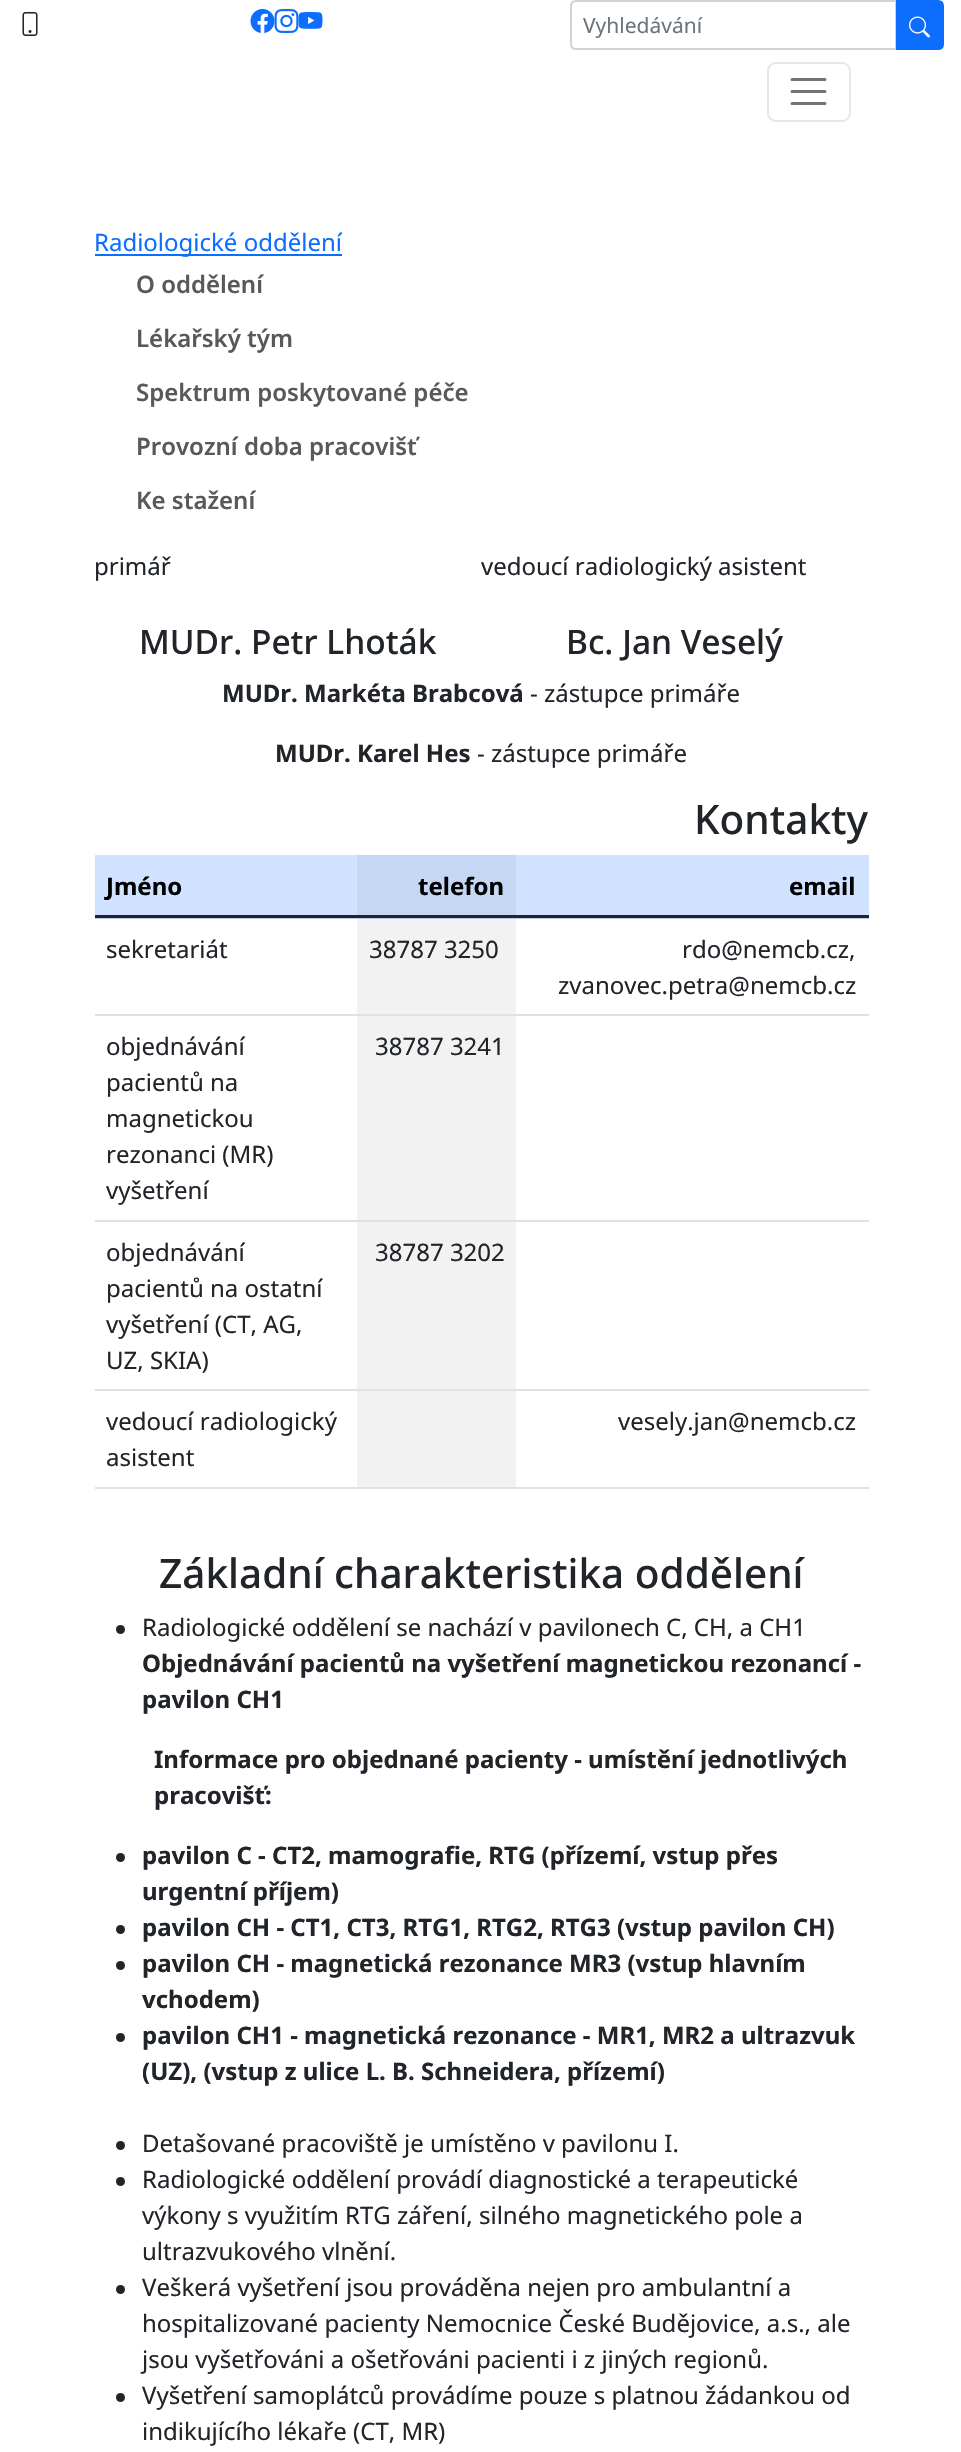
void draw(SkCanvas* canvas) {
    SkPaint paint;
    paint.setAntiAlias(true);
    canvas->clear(0xFFFFFFFF);
    canvas->drawImageRect(SkImages::DeferredFromEncodedData(SkData::MakeFromFileName("img1.png")), SkRect::MakeXYWH(22, 12, 16, 24), SkSamplingOptions());
    canvas->drawImageRect(SkImages::DeferredFromEncodedData(SkData::MakeFromFileName("img2.png")), SkRect::MakeXYWH(250, 9, 25, 24), SkSamplingOptions());
    canvas->drawImageRect(SkImages::DeferredFromEncodedData(SkData::MakeFromFileName("img3.png")), SkRect::MakeXYWH(274, 9, 25, 24), SkSamplingOptions());
    canvas->drawImageRect(SkImages::DeferredFromEncodedData(SkData::MakeFromFileName("img4.png")), SkRect::MakeXYWH(298, 11, 25, 18), SkSamplingOptions());
    paint.setStyle(SkPaint::kStroke_Style);
    paint.setStrokeWidth(2);
    paint.setColor(0xFFCED4DA);
    canvas->drawPath(SkPathBuilder().moveTo(576, 1).lineTo(896, 1).lineTo(896, 49).lineTo(576, 49).cubicTo(573, 49, 571, 47, 571, 44).lineTo(571, 6).cubicTo(571, 3, 573, 1, 576, 1).close().detach(), paint);
    SkFont font1(fontMgr->matchFamilyStyle("Noto Sans", SkFontStyle::Normal()), 21);
    font1.setSubpixel(true);
    paint.setStyle(SkPaint::kFill_Style);
    paint.setColor(0xFF6C757D);
    canvas->drawString("Vyhledávání", 583, 33, font1, paint);
    paint.setColor(0xFF0D6EFD);
    canvas->drawPath(SkPathBuilder().moveTo(897, 1).lineTo(938, 1).cubicTo(941, 1, 943, 3, 943, 6).lineTo(943, 44).cubicTo(943, 47, 941, 49, 938, 49).lineTo(897, 49).close().detach(), paint);
    paint.setStyle(SkPaint::kStroke_Style);
    canvas->drawPath(SkPathBuilder().moveTo(897, 1).lineTo(938, 1).cubicTo(941, 1, 943, 3, 943, 6).lineTo(943, 44).cubicTo(943, 47, 941, 49, 938, 49).lineTo(897, 49).close().detach(), paint);
    canvas->drawImageRect(SkImages::DeferredFromEncodedData(SkData::MakeFromFileName("img5.png")), SkRect::MakeXYWH(909, 16, 21, 22), SkSamplingOptions());
    paint.setColor(0xFFE6E6E6);
    canvas->drawRoundRect(SkRect::MakeXYWH(768, 63, 82, 58), 8, 8, paint);
    paint.setStrokeWidth(3);
    paint.setStrokeCap(SkPaint::kRound_Cap);
    paint.setColor(0xFF737373);
    canvas->drawPath(SkPathBuilder().moveTo(792, 79.5f).lineTo(825, 79.5f).moveTo(792, 91.5f).lineTo(825, 91.5f).moveTo(792, 103.5f).lineTo(825, 103.5f).detach(), paint);
    paint.setStyle(SkPaint::kFill_Style);
    paint.setColor(0xFF0D6EFD);
    canvas->drawRect(SkRect::MakeXYWH(95, 254, 247, 2), paint);
    SkFont font2(fontMgr->matchFamilyStyle("Noto Sans", SkFontStyle::Normal()), 24);
    font2.setSubpixel(true);
    canvas->drawString("Radiologické oddělení", 94, 251, font2, paint);
    SkFont font3(fontMgr->matchFamilyStyle("Noto Sans", SkFontStyle(600, SkFontStyle::kNormal_Width, SkFontStyle::kUpright_Slant)), 24);
    font3.setSubpixel(true);
    paint.setColor(0xFF595959);
    canvas->drawString("O oddělení", 136, 293, font3, paint);
    canvas->drawString("Lékařský tým", 136, 347, font3, paint);
    canvas->drawString("Spektrum poskytované péče", 136, 401, font3, paint);
    canvas->drawString("Provozní doba pracovišť", 136, 455, font3, paint);
    canvas->drawString("Ke stažení", 136, 509, font3, paint);
    paint.setColor(0xFF212529);
    canvas->drawString("primář", 94, 575, font2, paint);
    SkFont font4(fontMgr->matchFamilyStyle("Noto Sans", SkFontStyle(500, SkFontStyle::kNormal_Width, SkFontStyle::kUpright_Slant)), 33.5f);
    font4.setSubpixel(true);
    canvas->drawString("MUDr. Petr Lhoták", 139, 654, font4, paint);
    canvas->drawString("vedoucí radiologický asistent", 481, 575, font2, paint);
    canvas->drawString("Bc. Jan Veselý", 566, 654, font4, paint);
    SkFont font5(fontMgr->matchFamilyStyle("Noto Sans", SkFontStyle::Bold()), 24);
    font5.setSubpixel(true);
    canvas->drawString("MUDr. Markéta Brabcová", 222, 702, font5, paint);
    canvas->drawString("- zástupce primáře", 530, 702, font2, paint);
    canvas->drawString("MUDr. Karel Hes", 275, 762, font5, paint);
    canvas->drawString("- zástupce primáře", 477, 762, font2, paint);
    SkFont font6(fontMgr->matchFamilyStyle("Noto Sans", SkFontStyle(500, SkFontStyle::kNormal_Width, SkFontStyle::kUpright_Slant)), 40.5f);
    font6.setSubpixel(true);
    canvas->drawString("Kontakty", 694, 834, font6, paint);
    paint.setColor(0xFFCFE2FF);
    canvas->drawRect(SkRect::MakeXYWH(95, 855, 262, 60), paint);
    paint.setColor(0xFF000000);
    canvas->drawString("Jméno", 106, 895, font5, paint);
    paint.setColor(0xFFC5D7F2);
    canvas->drawRect(SkRect::MakeXYWH(357, 855, 159, 60), paint);
    paint.setColor(0xFF000000);
    canvas->drawString("telefon", 418, 895, font5, paint);
    paint.setColor(0xFFCFE2FF);
    canvas->drawRect(SkRect::MakeXYWH(516, 855, 353, 60), paint);
    paint.setColor(0xFFBACBE6);
    canvas->drawRect(SkRect::MakeXYWH(95, 918, 774, 1), paint);
    paint.setColor(0xFF000000);
    canvas->drawString("email", 789, 895, font5, paint);
    paint.setColor(0xFF212529);
    canvas->drawRect(SkRect::MakeXYWH(95, 915, 774, 3), paint);
    canvas->drawString("sekretariát", 106, 958, font2, paint);
    paint.setColor(0xFFF2F2F2);
    canvas->drawRect(SkRect::MakeXYWH(357, 919, 159, 95), paint);
    paint.setColor(0xFF212529);
    canvas->drawString("38787 3250", 369, 958, font2, paint);
    paint.setColor(0xFFDEE2E6);
    canvas->drawRect(SkRect::MakeXYWH(95, 1014, 774, 2), paint);
    paint.setColor(0xFF212529);
    canvas->drawString("rdo@nemcb.cz,", 682, 958, font2, paint);
    canvas->drawString("zvanovec.petra@nemcb.cz", 558, 994, font2, paint);
    canvas->drawString("objednávání", 106, 1055, font2, paint);
    canvas->drawString("pacientů na", 106, 1091, font2, paint);
    canvas->drawString("magnetickou", 106, 1127, font2, paint);
    canvas->drawString("rezonanci (MR)", 106, 1163, font2, paint);
    canvas->drawString("vyšetření", 106, 1199, font2, paint);
    paint.setColor(0xFFF2F2F2);
    canvas->drawRect(SkRect::MakeXYWH(357, 1016, 159, 204), paint);
    paint.setColor(0xFF212529);
    canvas->drawString("38787 3241", 375, 1055, font2, paint);
    paint.setColor(0xFFDEE2E6);
    canvas->drawRect(SkRect::MakeXYWH(95, 1220, 774, 2), paint);
    paint.setColor(0xFF212529);
    canvas->drawString("objednávání", 106, 1261, font2, paint);
    canvas->drawString("pacientů na ostatní", 106, 1297, font2, paint);
    canvas->drawString("vyšetření (CT, AG,", 106, 1333, font2, paint);
    canvas->drawString("UZ, SKIA)", 106, 1369, font2, paint);
    paint.setColor(0xFFF2F2F2);
    canvas->drawRect(SkRect::MakeXYWH(357, 1222, 159, 167), paint);
    paint.setColor(0xFF212529);
    canvas->drawString("38787 3202", 375, 1261, font2, paint);
    paint.setColor(0xFFDEE2E6);
    canvas->drawRect(SkRect::MakeXYWH(95, 1389, 774, 2), paint);
    paint.setColor(0xFF212529);
    canvas->drawString("vedoucí radiologický", 106, 1430, font2, paint);
    canvas->drawString("asistent", 106, 1466, font2, paint);
    paint.setColor(0xFFF2F2F2);
    canvas->drawRect(SkRect::MakeXYWH(357, 1391, 159, 96), paint);
    paint.setColor(0xFFDEE2E6);
    canvas->drawRect(SkRect::MakeXYWH(95, 1487, 774, 2), paint);
    paint.setColor(0xFF212529);
    canvas->drawString("vesely.jan@nemcb.cz", 618, 1430, font2, paint);
    canvas->drawString("Základní charakteristika oddělení", 159, 1588, font6, paint);
    canvas->drawCircle(120.5f, 1629.5f, 4.5f, paint);
    canvas->drawString("Radiologické oddělení se nachází v pavilonech C, CH, a CH1", 142, 1636, font2, paint);
    canvas->drawString("Objednávání pacientů na vyšetření magnetickou rezonancí -", 142, 1672, font5, paint);
    canvas->drawString("pavilon CH1", 142, 1708, font5, paint);
    canvas->drawString("Informace pro objednané pacienty - umístění jednotlivých", 154, 1768, font5, paint);
    canvas->drawString("pracovišť:", 154, 1804, font5, paint);
    canvas->drawCircle(120.5f, 1857.5f, 4.5f, paint);
    canvas->drawString("pavilon C - CT2, mamografie, RTG (přízemí, vstup přes", 142, 1864, font5, paint);
    canvas->drawString("urgentní příjem)", 142, 1900, font5, paint);
    canvas->drawCircle(120.5f, 1929.5f, 4.5f, paint);
    canvas->drawString("pavilon CH - CT1, CT3, RTG1, RTG2, RTG3 (vstup pavilon CH)", 142, 1936, font5, paint);
    canvas->drawCircle(120.5f, 1965.5f, 4.5f, paint);
    canvas->drawString("pavilon CH - magnetická rezonance MR3 (vstup hlavním", 142, 1972, font5, paint);
    canvas->drawString("vchodem)", 142, 2008, font5, paint);
    canvas->drawCircle(120.5f, 2037.5f, 4.5f, paint);
    canvas->drawString("pavilon CH1 - magnetická rezonance - MR1, MR2 a ultrazvuk", 142, 2044, font5, paint);
    canvas->drawString("(UZ), (vstup z ulice L. B. Schneidera, přízemí)", 142, 2080, font5, paint);
    canvas->drawCircle(120.5f, 2145.5f, 4.5f, paint);
    canvas->drawString("Detašované pracoviště je umístěno v pavilonu I.", 142, 2152, font2, paint);
    canvas->drawCircle(120.5f, 2181.5f, 4.5f, paint);
    canvas->drawString("Radiologické oddělení provádí diagnostické a terapeutické", 142, 2188, font2, paint);
    canvas->drawString("výkony s využitím RTG záření, silného magnetického pole a", 142, 2224, font2, paint);
    canvas->drawString("ultrazvukového vlnění.", 142, 2260, font2, paint);
    canvas->drawCircle(120.5f, 2289.5f, 4.5f, paint);
    canvas->drawString("Veškerá vyšetření jsou prováděna nejen pro ambulantní a", 142, 2296, font2, paint);
    canvas->drawString("hospitalizované pacienty Nemocnice České Budějovice, a.s., ale", 142, 2332, font2, paint);
    canvas->drawString("jsou vyšetřováni a ošetřováni pacienti i z jiných regionů.", 142, 2368, font2, paint);
    canvas->drawCircle(120.5f, 2397.5f, 4.5f, paint);
    canvas->drawString("Vyšetření samoplátců provádíme pouze s platnou žádankou od", 142, 2404, font2, paint);
    canvas->drawString("indikujícího lékaře (CT, MR)", 142, 2440, font2, paint);
}
